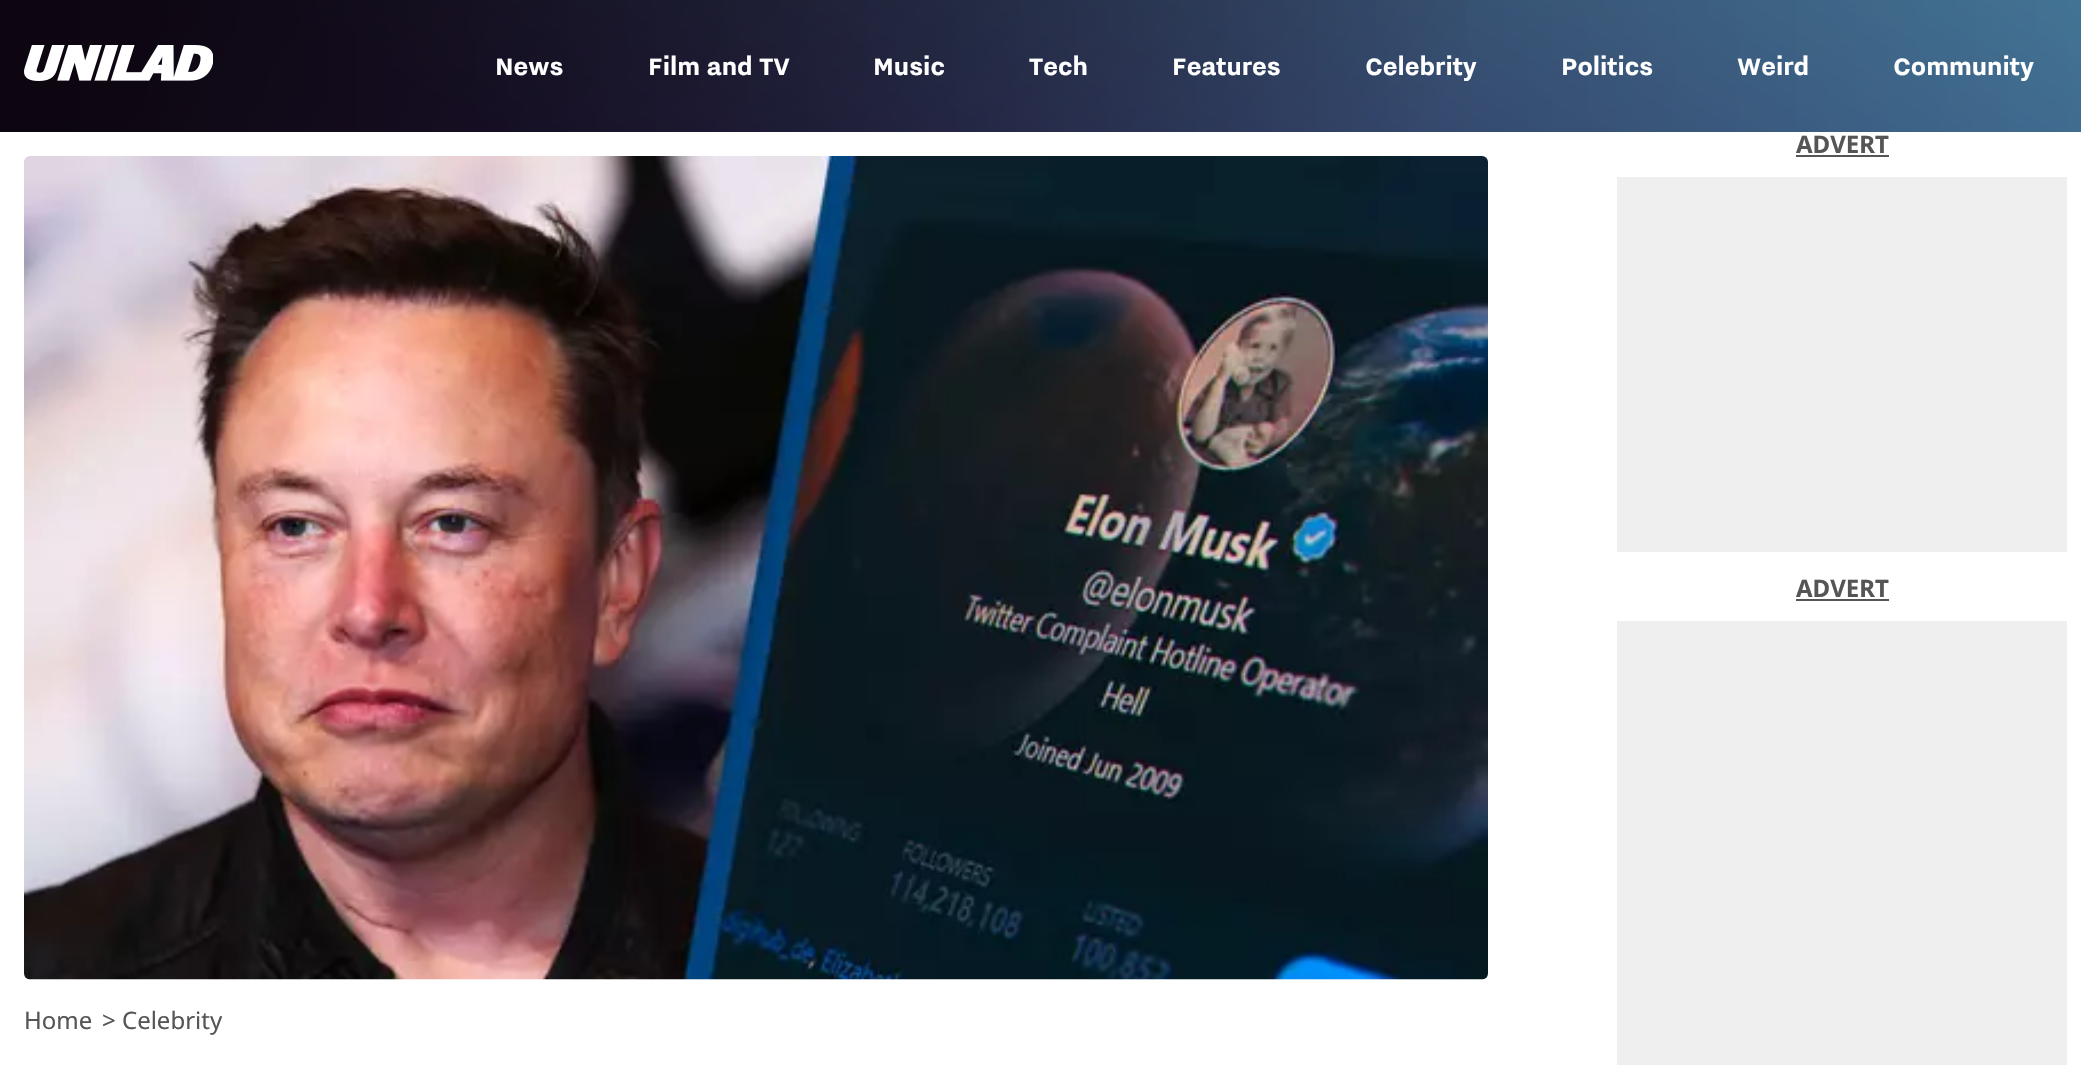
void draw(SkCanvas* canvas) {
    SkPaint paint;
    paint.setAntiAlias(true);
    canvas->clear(0xFFFFFFFF);
    {
        const SkColor colors[] = {0xFF19447A, 0xFF000000};
        const float stops[] = {0, 0.98f};
        const SkPoint ends[] = {{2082, 66}, {0, 66}};
        paint.setShader(SkGradientShader::MakeLinear(ends, colors, stops, 2, SkTileMode::kClamp));
        paint.setAlpha(255);
    }
    canvas->drawRect(SkRect::MakeXYWH(0, 0, 2081, 132), paint);
    {
        const SkColor colors[] = {0x6980C1BD, 0x5C592773};
        const float stops[] = {0, 0.8f};
        const SkPoint ends[] = {{1368, -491}, {746, 569}};
        paint.setShader(SkGradientShader::MakeLinear(ends, colors, stops, 2, SkTileMode::kClamp));
        paint.setAlpha(255);
    }
    canvas->drawRect(SkRect::MakeXYWH(0, 0, 2081, 132), paint);
    {
        const SkColor colors[] = {0x99000000, 0x00000000};
        const float stops[] = {0.07f, 0.7f};
        const SkPoint ends[] = {{275, -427}, {1807, 559}};
        paint.setShader(SkGradientShader::MakeLinear(ends, colors, stops, 2, SkTileMode::kClamp));
        paint.setAlpha(255);
    }
    canvas->drawRect(SkRect::MakeXYWH(0, 0, 1467, 132), paint);
    canvas->drawImageRect(SkImages::DeferredFromEncodedData(SkData::MakeFromFileName("img1.png")), SkRect::MakeXYWH(24, 45, 189, 36), SkSamplingOptions());
    SkFont font1(fontMgr->matchFamilyStyle("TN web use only", SkFontStyle::Bold()), 30);
    font1.setSubpixel(true);
    paint.setShader(nullptr);
    paint.setColor(0xFFFFFFFF);
    canvas->drawString("News", 495, 75, font1, paint);
    canvas->drawString("Film and TV", 648, 75, font1, paint);
    canvas->drawString("Music", 873, 75, font1, paint);
    canvas->drawString("Tech", 1029, 75, font1, paint);
    canvas->drawString("Features", 1172, 75, font1, paint);
    canvas->drawString("Celebrity", 1365, 75, font1, paint);
    canvas->drawString("Politics", 1561, 75, font1, paint);
    canvas->drawString("Weird", 1737, 75, font1, paint);
    canvas->drawString("Community", 1893, 75, font1, paint);
    SkFont font2(fontMgr->matchFamilyStyle("Noto Sans", SkFontStyle::Bold()), 24);
    font2.setSubpixel(true);
    paint.setColor(0xFF555555);
    canvas->drawString("ADVERT", 1796, 153, font2, paint);
    canvas->drawRect(SkRect::MakeXYWH(1796, 155, 93, 2), paint);
    paint.setColor(0xFFEFEFEF);
    canvas->drawRect(SkRect::MakeXYWH(1617, 177, 450, 375), paint);
    paint.setColor(0xFF555555);
    canvas->drawString("ADVERT", 1796, 597, font2, paint);
    canvas->drawRect(SkRect::MakeXYWH(1796, 599, 93, 2), paint);
    paint.setColor(0xFFEFEFEF);
    canvas->drawRect(SkRect::MakeXYWH(1617, 621, 450, 444), paint);
    canvas->drawImageRect(SkImages::DeferredFromEncodedData(SkData::MakeFromFileName("img2.png")), SkRect::MakeXYWH(24, 156, 1464, 824), SkSamplingOptions());
    SkFont font3(fontMgr->matchFamilyStyle("Noto Sans", SkFontStyle::Normal()), 24);
    font3.setSubpixel(true);
    paint.setColor(0xFF555555);
    canvas->drawString("Home", 24, 1029, font3, paint);
    canvas->drawString("> Celebrity", 102, 1029, font3, paint);
}
